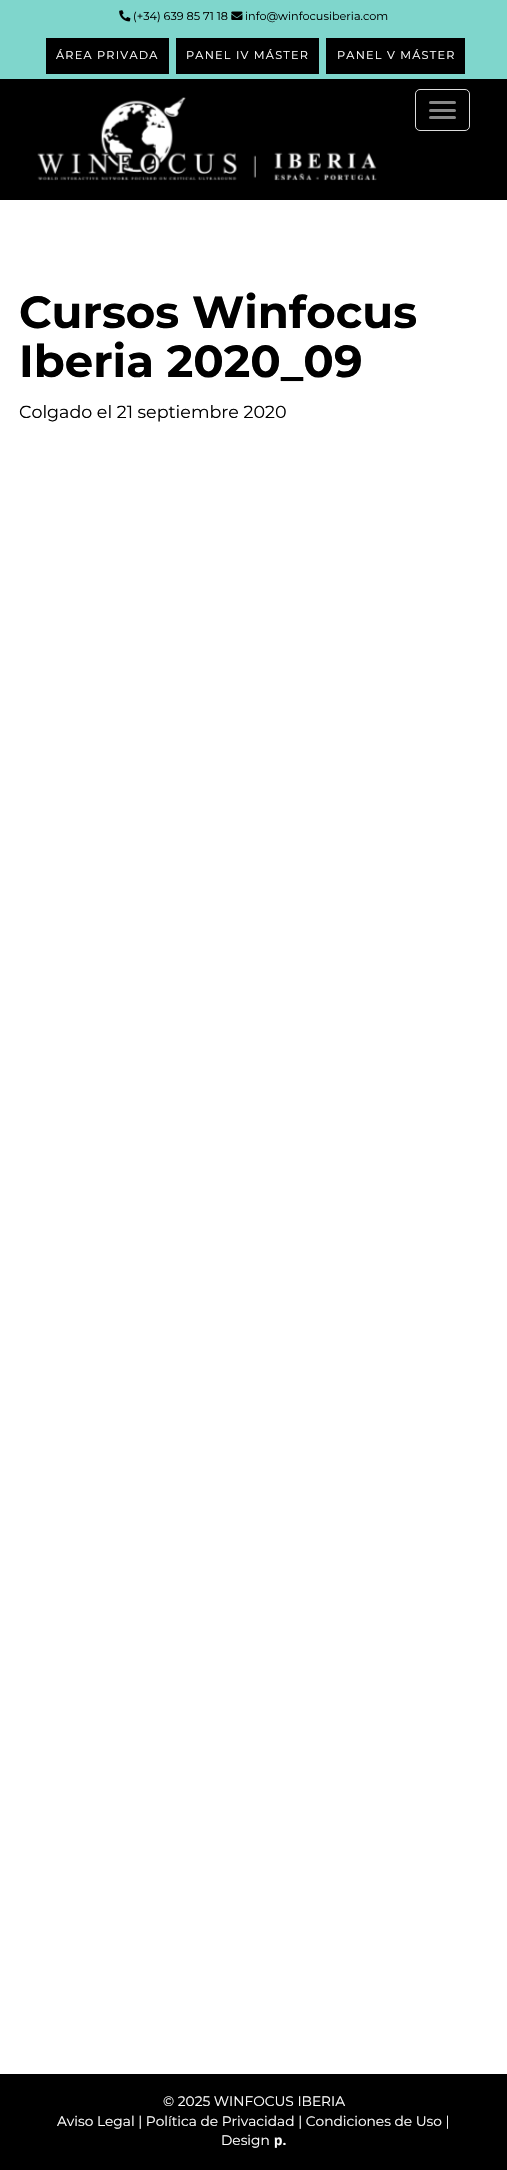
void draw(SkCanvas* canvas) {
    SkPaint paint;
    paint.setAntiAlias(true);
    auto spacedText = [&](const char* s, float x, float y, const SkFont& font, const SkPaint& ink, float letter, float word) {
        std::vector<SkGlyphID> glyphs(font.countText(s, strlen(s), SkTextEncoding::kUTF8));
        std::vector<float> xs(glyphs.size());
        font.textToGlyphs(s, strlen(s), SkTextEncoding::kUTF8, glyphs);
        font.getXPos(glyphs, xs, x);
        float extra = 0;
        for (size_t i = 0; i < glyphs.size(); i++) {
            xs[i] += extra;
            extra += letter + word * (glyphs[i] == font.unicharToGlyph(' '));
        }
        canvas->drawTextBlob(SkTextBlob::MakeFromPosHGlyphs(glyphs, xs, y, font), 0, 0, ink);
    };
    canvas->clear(0xFFFFFFFF);
    paint.setColor(0xFF000000);
    canvas->drawRect(SkRect::MakeXYWH(0, 79, 507, 121), paint);
    paint.setColor(0xFF7FD6CC);
    canvas->drawRect(SkRect::MakeXYWH(0, 0, 507, 79), paint);
    canvas->drawImageRect(SkImages::DeferredFromEncodedData(SkData::MakeFromFileName("img1.png")), SkRect::MakeXYWH(119, 10, 12, 12), SkSamplingOptions());
    SkFont font1(fontMgr->matchFamilyStyle("Montserrat", SkFontStyle::Normal()), 11.25f);
    font1.setSubpixel(true);
    paint.setColor(0xFF000000);
    canvas->drawString("(+34) 639 85 71 18", 133, 20, font1, paint);
    canvas->drawImageRect(SkImages::DeferredFromEncodedData(SkData::MakeFromFileName("img2.png")), SkRect::MakeXYWH(231, 11, 12, 9), SkSamplingOptions());
    canvas->drawString("info@winfocusiberia.com", 245, 20, font1, paint);
    canvas->drawRect(SkRect::MakeXYWH(46, 38, 123, 36), paint);
    paint.setColor(0xFFFFFFFF);
    spacedText("ÁREA PRIVADA", 56, 59, font1, paint, 1.25f, 0);
    paint.setColor(0xFF000000);
    canvas->drawRect(SkRect::MakeXYWH(176, 38, 143, 36), paint);
    paint.setColor(0xFFFFFFFF);
    spacedText("PANEL IV MÁSTER", 186, 59, font1, paint, 1.25f, 0);
    paint.setColor(0xFF000000);
    canvas->drawRect(SkRect::MakeXYWH(326, 38, 139, 36), paint);
    paint.setColor(0xFFFFFFFF);
    spacedText("PANEL V MÁSTER", 337, 59, font1, paint, 1.25f, 0);
    canvas->drawImageRect(SkImages::DeferredFromEncodedData(SkData::MakeFromFileName("img3.png")), SkRect::MakeXYWH(37, 97, 340, 84), SkSamplingOptions());
    paint.setStyle(SkPaint::kStroke_Style);
    paint.setStrokeWidth(1);
    paint.setColor(0xFFDDDDDD);
    canvas->drawRoundRect(SkRect::MakeXYWH(415.5f, 89.5f, 54, 41), 4.5f, 4.5f, paint);
    paint.setStyle(SkPaint::kFill_Style);
    paint.setColor(0xFF888888);
    canvas->drawRoundRect(SkRect::MakeXYWH(429, 101, 27, 3), 1.5f, 1.5f, paint);
    canvas->drawRoundRect(SkRect::MakeXYWH(429, 109, 27, 3), 1.5f, 1.5f, paint);
    canvas->drawRoundRect(SkRect::MakeXYWH(429, 116, 27, 3), 1.5f, 1.5f, paint);
    SkFont font2(fontMgr->matchFamilyStyle("Montserrat", SkFontStyle::Bold()), 45);
    font2.setSubpixel(true);
    paint.setColor(0xFF000000);
    canvas->drawString("Cursos Winfocus", 19, 328, font2, paint);
    canvas->drawString("Iberia 2020_09", 19, 377, font2, paint);
    SkFont font3(fontMgr->matchFamilyStyle("Montserrat", SkFontStyle::Normal()), 17.5f);
    font3.setSubpixel(true);
    canvas->drawString("Colgado el 21 septiembre 2020", 19, 418, font3, paint);
    canvas->drawRect(SkRect::MakeXYWH(0, 2074, 507, 96), paint);
    SkFont font4(fontMgr->matchFamilyStyle("Montserrat", SkFontStyle::Normal()), 13.75f);
    font4.setSubpixel(true);
    paint.setColor(0xFFFFFFFF);
    canvas->drawString("© 2025 WINFOCUS IBERIA", 163, 2106, font4, paint);
    canvas->drawString("Aviso Legal | Política de Privacidad | Condiciones de Uso |", 57, 2126, font4, paint);
    canvas->drawString("Design", 221, 2145, font4, paint);
    SkFont font5(fontMgr->matchFamilyStyle("Liberation Sans", SkFontStyle::Bold()), 13.75f);
    font5.setSubpixel(true);
    canvas->drawString("p.", 274, 2145, font5, paint);
}
